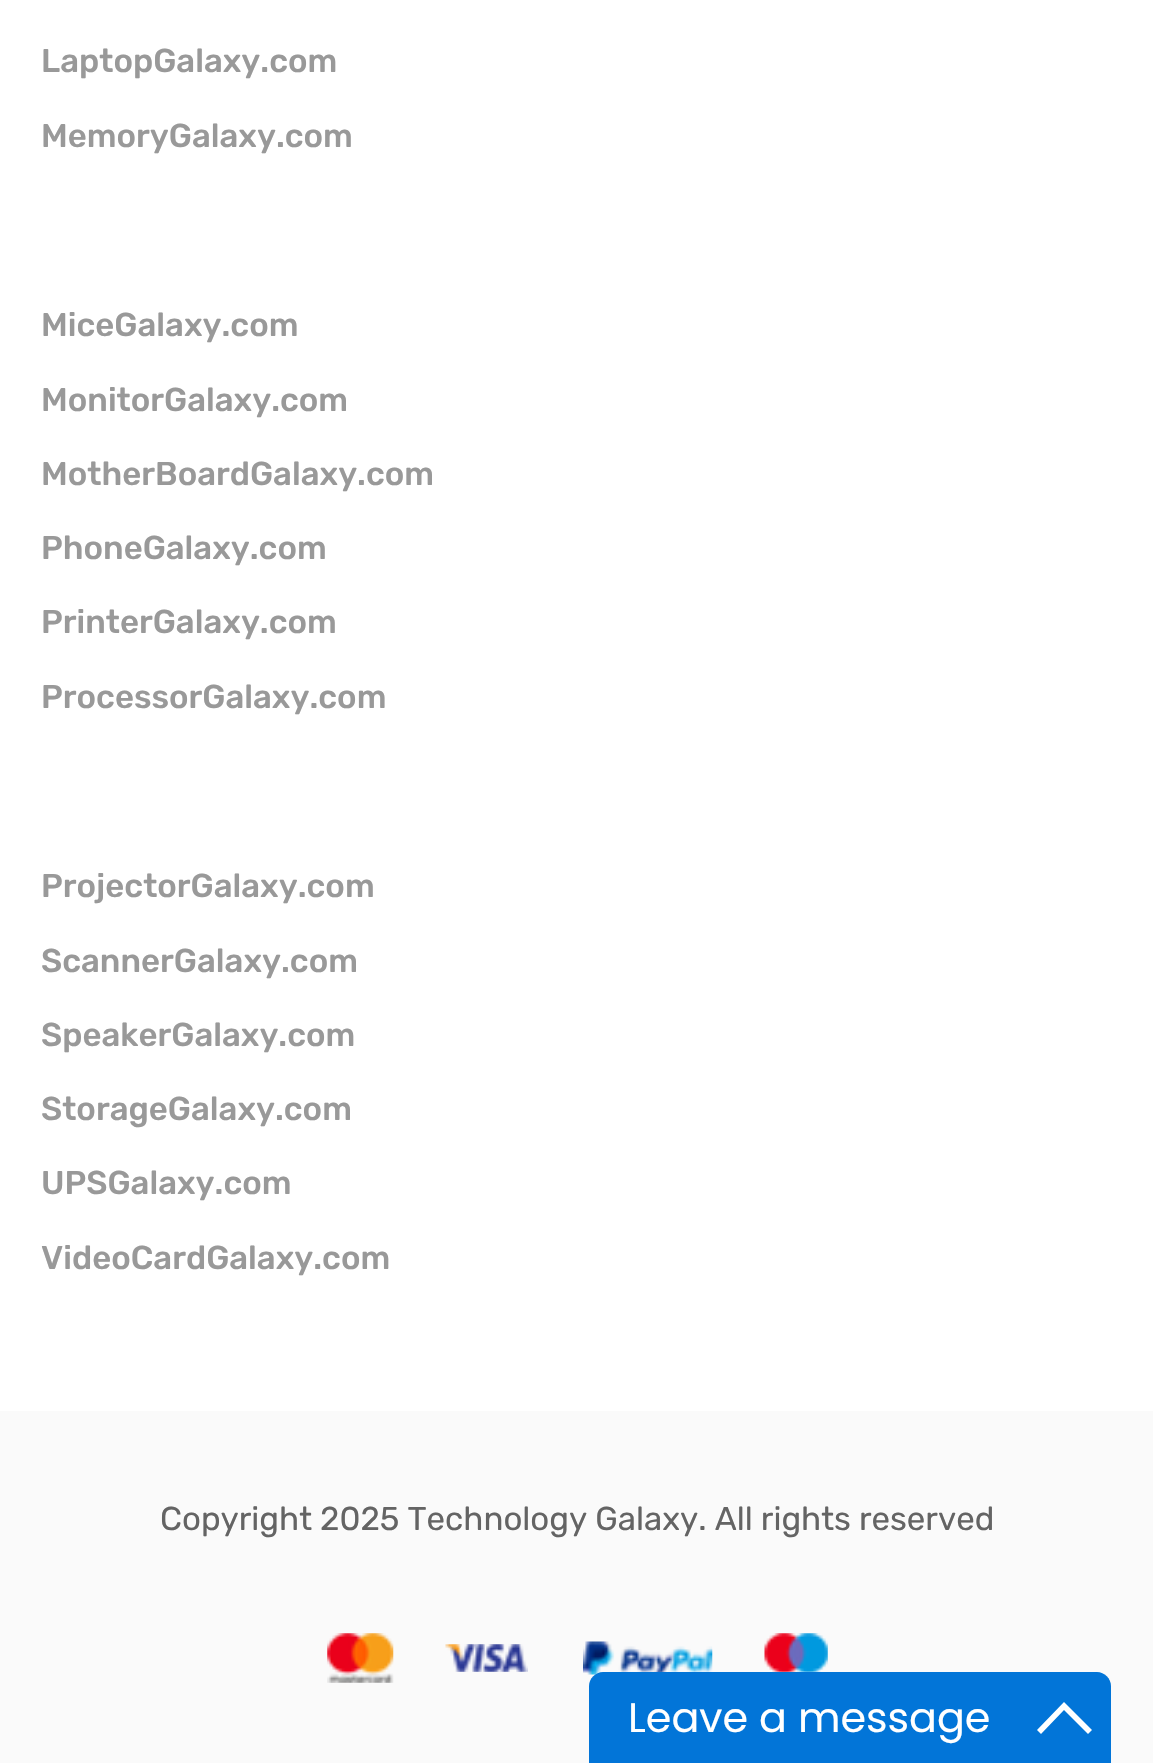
void draw(SkCanvas* canvas) {
    SkPaint paint;
    paint.setAntiAlias(true);
    canvas->clear(0xFFFFFFFF);
    SkFont font1(fontMgr->matchFamilyStyle("Rubik", SkFontStyle(500, SkFontStyle::kNormal_Width, SkFontStyle::kUpright_Slant)), 33);
    font1.setSubpixel(true);
    paint.setColor(0xFF999999);
    canvas->drawString("LaptopGalaxy.com", 41, 72, font1, paint);
    canvas->drawString("MemoryGalaxy.com", 41, 147, font1, paint);
    canvas->drawString("MiceGalaxy.com", 41, 336, font1, paint);
    canvas->drawString("MonitorGalaxy.com", 41, 411, font1, paint);
    canvas->drawString("MotherBoardGalaxy.com", 41, 485, font1, paint);
    canvas->drawString("PhoneGalaxy.com", 41, 559, font1, paint);
    canvas->drawString("PrinterGalaxy.com", 41, 633, font1, paint);
    canvas->drawString("ProcessorGalaxy.com", 41, 708, font1, paint);
    canvas->drawString("ProjectorGalaxy.com", 41, 897, font1, paint);
    canvas->drawString("ScannerGalaxy.com", 41, 972, font1, paint);
    canvas->drawString("SpeakerGalaxy.com", 41, 1046, font1, paint);
    canvas->drawString("StorageGalaxy.com", 41, 1120, font1, paint);
    canvas->drawString("UPSGalaxy.com", 41, 1194, font1, paint);
    canvas->drawString("VideoCardGalaxy.com", 41, 1269, font1, paint);
    paint.setColor(0xFFFAFAFA);
    canvas->drawRect(SkRect::MakeXYWH(0, 1411, 1153, 352), paint);
    SkFont font2(fontMgr->matchFamilyStyle("Rubik", SkFontStyle::Normal()), 33);
    font2.setSubpixel(true);
    paint.setColor(0xFF646464);
    canvas->drawString("Copyright 2025 Technology Galaxy. All rights reserved", 160, 1530, font2, paint);
    canvas->drawImageRect(SkImages::DeferredFromEncodedData(SkData::MakeFromFileName("img1.png")), SkRect::MakeXYWH(327, 1633, 67, 50), SkSamplingOptions());
    canvas->drawImageRect(SkImages::DeferredFromEncodedData(SkData::MakeFromFileName("img2.png")), SkRect::MakeXYWH(445, 1644, 83, 28), SkSamplingOptions());
    canvas->drawImageRect(SkImages::DeferredFromEncodedData(SkData::MakeFromFileName("img3.png")), SkRect::MakeXYWH(583, 1641, 130, 34), SkSamplingOptions());
    canvas->drawImageRect(SkImages::DeferredFromEncodedData(SkData::MakeFromFileName("img4.png")), SkRect::MakeXYWH(764, 1633, 64, 39), SkSamplingOptions());
    paint.setColor(0xFF0275D8);
    canvas->drawPath(SkPathBuilder().moveTo(603, 1672).lineTo(1097, 1672).cubicTo(1104.5f, 1672, 1111, 1678.5f, 1111, 1686).lineTo(1111, 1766).lineTo(589, 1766).lineTo(589, 1686).cubicTo(589, 1678.5f, 595.5f, 1672, 603, 1672).close().detach(), paint);
    SkFont font3(fontMgr->matchFamilyStyle("Poppins", SkFontStyle::Normal()), 41.25f);
    font3.setSubpixel(true);
    paint.setColor(0xFFFFFFFF);
    canvas->drawString("Leave a message", 628, 1732, font3, paint);
    canvas->drawPath(SkPathBuilder().moveTo(1064, 1702).lineTo(1092, 1730).lineTo(1088, 1734).lineTo(1064, 1710).lineTo(1041, 1734).lineTo(1037, 1730).close().detach(), paint);
}
